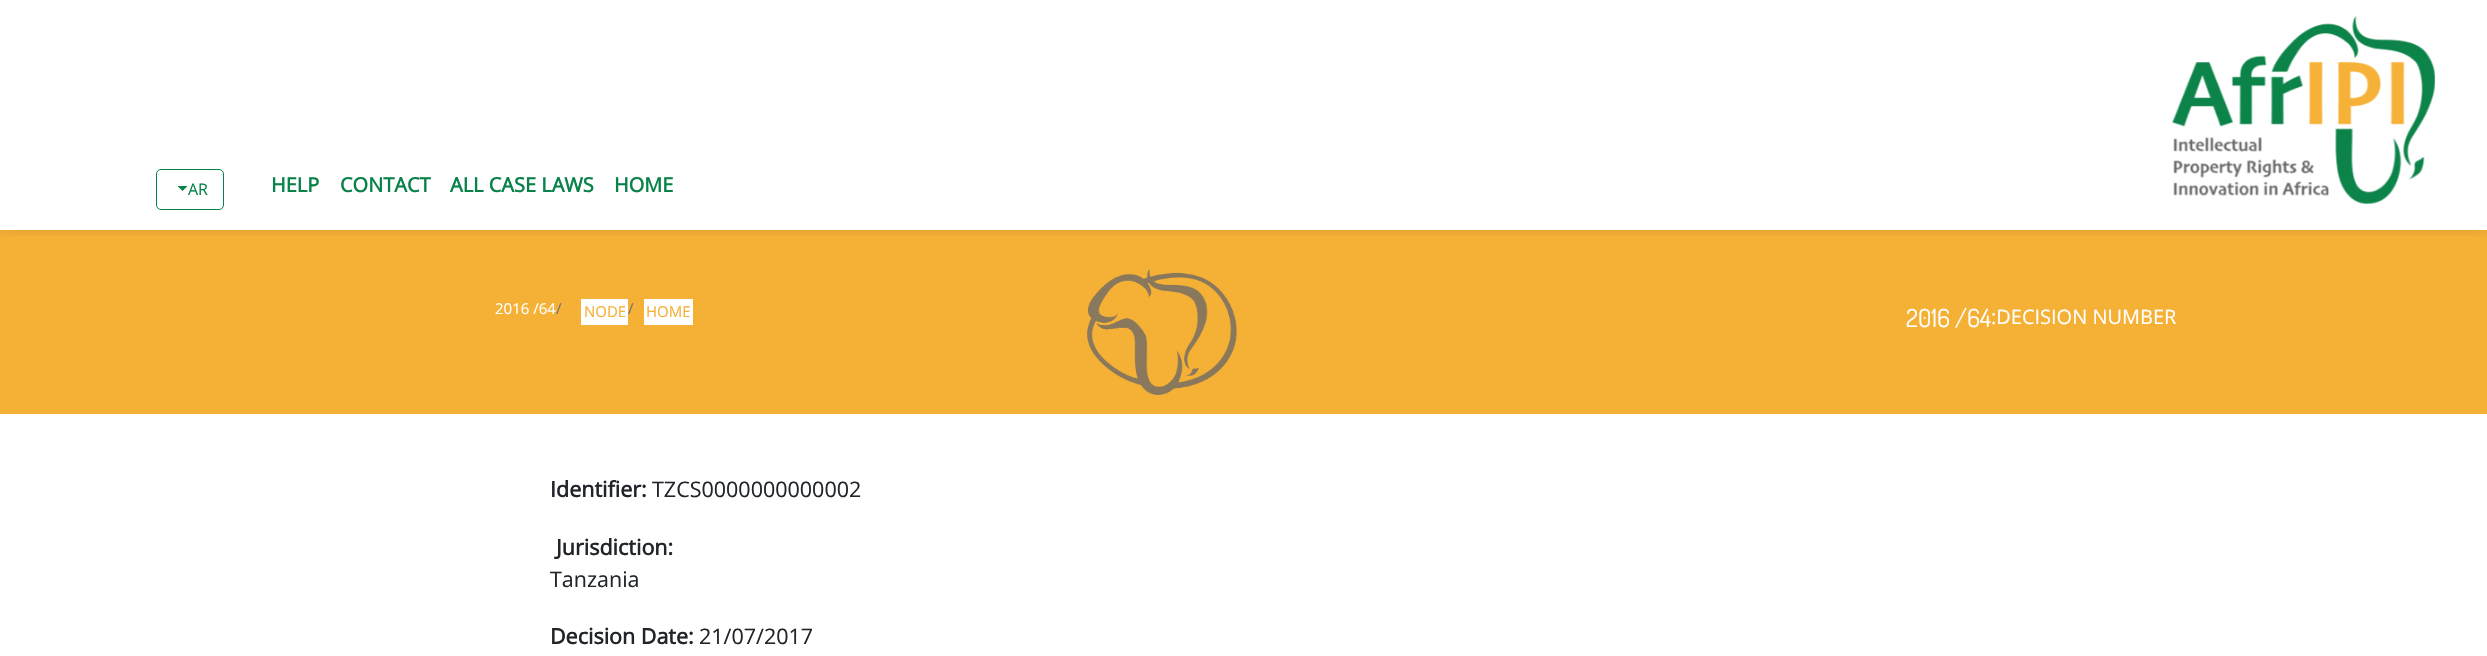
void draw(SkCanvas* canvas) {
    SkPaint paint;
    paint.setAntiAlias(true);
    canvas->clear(0xFFFFFFFF);
    paint.setColor(0xFFF5B036);
    canvas->drawRect(SkRect::MakeXYWH(0, 230, 2487, 184), paint);
    canvas->save();
    canvas->clipRect(SkRect::MakeXYWH(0, 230, 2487, 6));
    paint.setColor(0x1A000000);
    paint.setMaskFilter(SkMaskFilter::MakeBlur(kNormal_SkBlurStyle, 7.5f));
    canvas->drawRect(SkRect::MakeXYWH(0, 0, 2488, 230), paint);
    paint.setMaskFilter(nullptr);
    canvas->restore();
    paint.setStyle(SkPaint::kStroke_Style);
    paint.setStrokeWidth(1);
    paint.setColor(0xFF088249);
    canvas->drawRoundRect(SkRect::MakeXYWH(156.5f, 169.5f, 67, 40), 4.5f, 4.5f, paint);
    paint.setStyle(SkPaint::kFill_Style);
    canvas->drawPath(SkPathBuilder().moveTo(177.5f, 186).lineTo(187.5f, 186).lineTo(182.5f, 191).close().detach(), paint);
    SkFont font1(fontMgr->matchFamilyStyle("Open Sans", SkFontStyle::Normal()), 16);
    font1.setSubpixel(true);
    canvas->drawString("AR", 188, 195, font1, paint);
    SkFont font2(fontMgr->matchFamilyStyle("Open Sans", SkFontStyle::Bold()), 20);
    font2.setSubpixel(true);
    canvas->drawString("HELP", 271, 192, font2, paint);
    canvas->drawString("CONTACT", 340, 192, font2, paint);
    canvas->drawString("ALL CASE LAWS", 450, 192, font2, paint);
    canvas->drawString("HOME", 614, 192, font2, paint);
    canvas->drawImageRect(SkImages::DeferredFromEncodedData(SkData::MakeFromFileName("img1.png")), SkRect::MakeXYWH(2172, 16, 263, 188), SkSamplingOptions());
    SkFont font3(fontMgr->matchFamilyStyle("Open Sans", SkFontStyle::Normal()), 15);
    font3.setSubpixel(true);
    paint.setColor(0xFF6C757D);
    canvas->drawString("/", 556, 314, font3, paint);
    paint.setColor(0xFFFFFFFF);
    canvas->drawString("2016 /64", 495, 314, font3, paint);
    canvas->drawRect(SkRect::MakeXYWH(581, 299, 47, 26), paint);
    paint.setColor(0xFFF5B036);
    canvas->drawString("NODE", 584, 317, font3, paint);
    paint.setColor(0xFF6C757D);
    canvas->drawString("/", 628, 314, font3, paint);
    paint.setColor(0xFFFFFFFF);
    canvas->drawRect(SkRect::MakeXYWH(644, 299, 49, 26), paint);
    paint.setColor(0xFFF5B036);
    canvas->drawString("HOME", 646, 317, font3, paint);
    canvas->drawImageRect(SkImages::DeferredFromEncodedData(SkData::MakeFromFileName("img2.png")), SkRect::MakeXYWH(1087, 269, 150, 126), SkSamplingOptions());
    SkFont font4(fontMgr->matchFamilyStyle("Dosis", SkFontStyle::Normal()), 25);
    font4.setSubpixel(true);
    paint.setColor(0xFFFFFFFF);
    canvas->drawString("2016 /64", 1906, 327, font4, paint);
    SkFont font5(fontMgr->matchFamilyStyle("Open Sans", SkFontStyle::Normal()), 20);
    font5.setSubpixel(true);
    canvas->drawString(":DECISION NUMBER", 1991, 324, font5, paint);
    SkFont font6(fontMgr->matchFamilyStyle("Open Sans", SkFontStyle::Bold()), 21.5f);
    font6.setSubpixel(true);
    paint.setColor(0xFF212529);
    canvas->drawString("Identifier:", 550, 497, font6, paint);
    SkFont font7(fontMgr->matchFamilyStyle("Open Sans", SkFontStyle::Normal()), 21.5f);
    font7.setSubpixel(true);
    canvas->drawString("TZCS0000000000002", 652, 497, font7, paint);
    canvas->drawString("Jurisdiction:", 556, 555, font6, paint);
    canvas->drawString("Tanzania", 550, 587, font7, paint);
    canvas->drawString("Decision Date:", 550, 644, font6, paint);
    canvas->drawString("21/07/2017", 699, 644, font7, paint);
}
